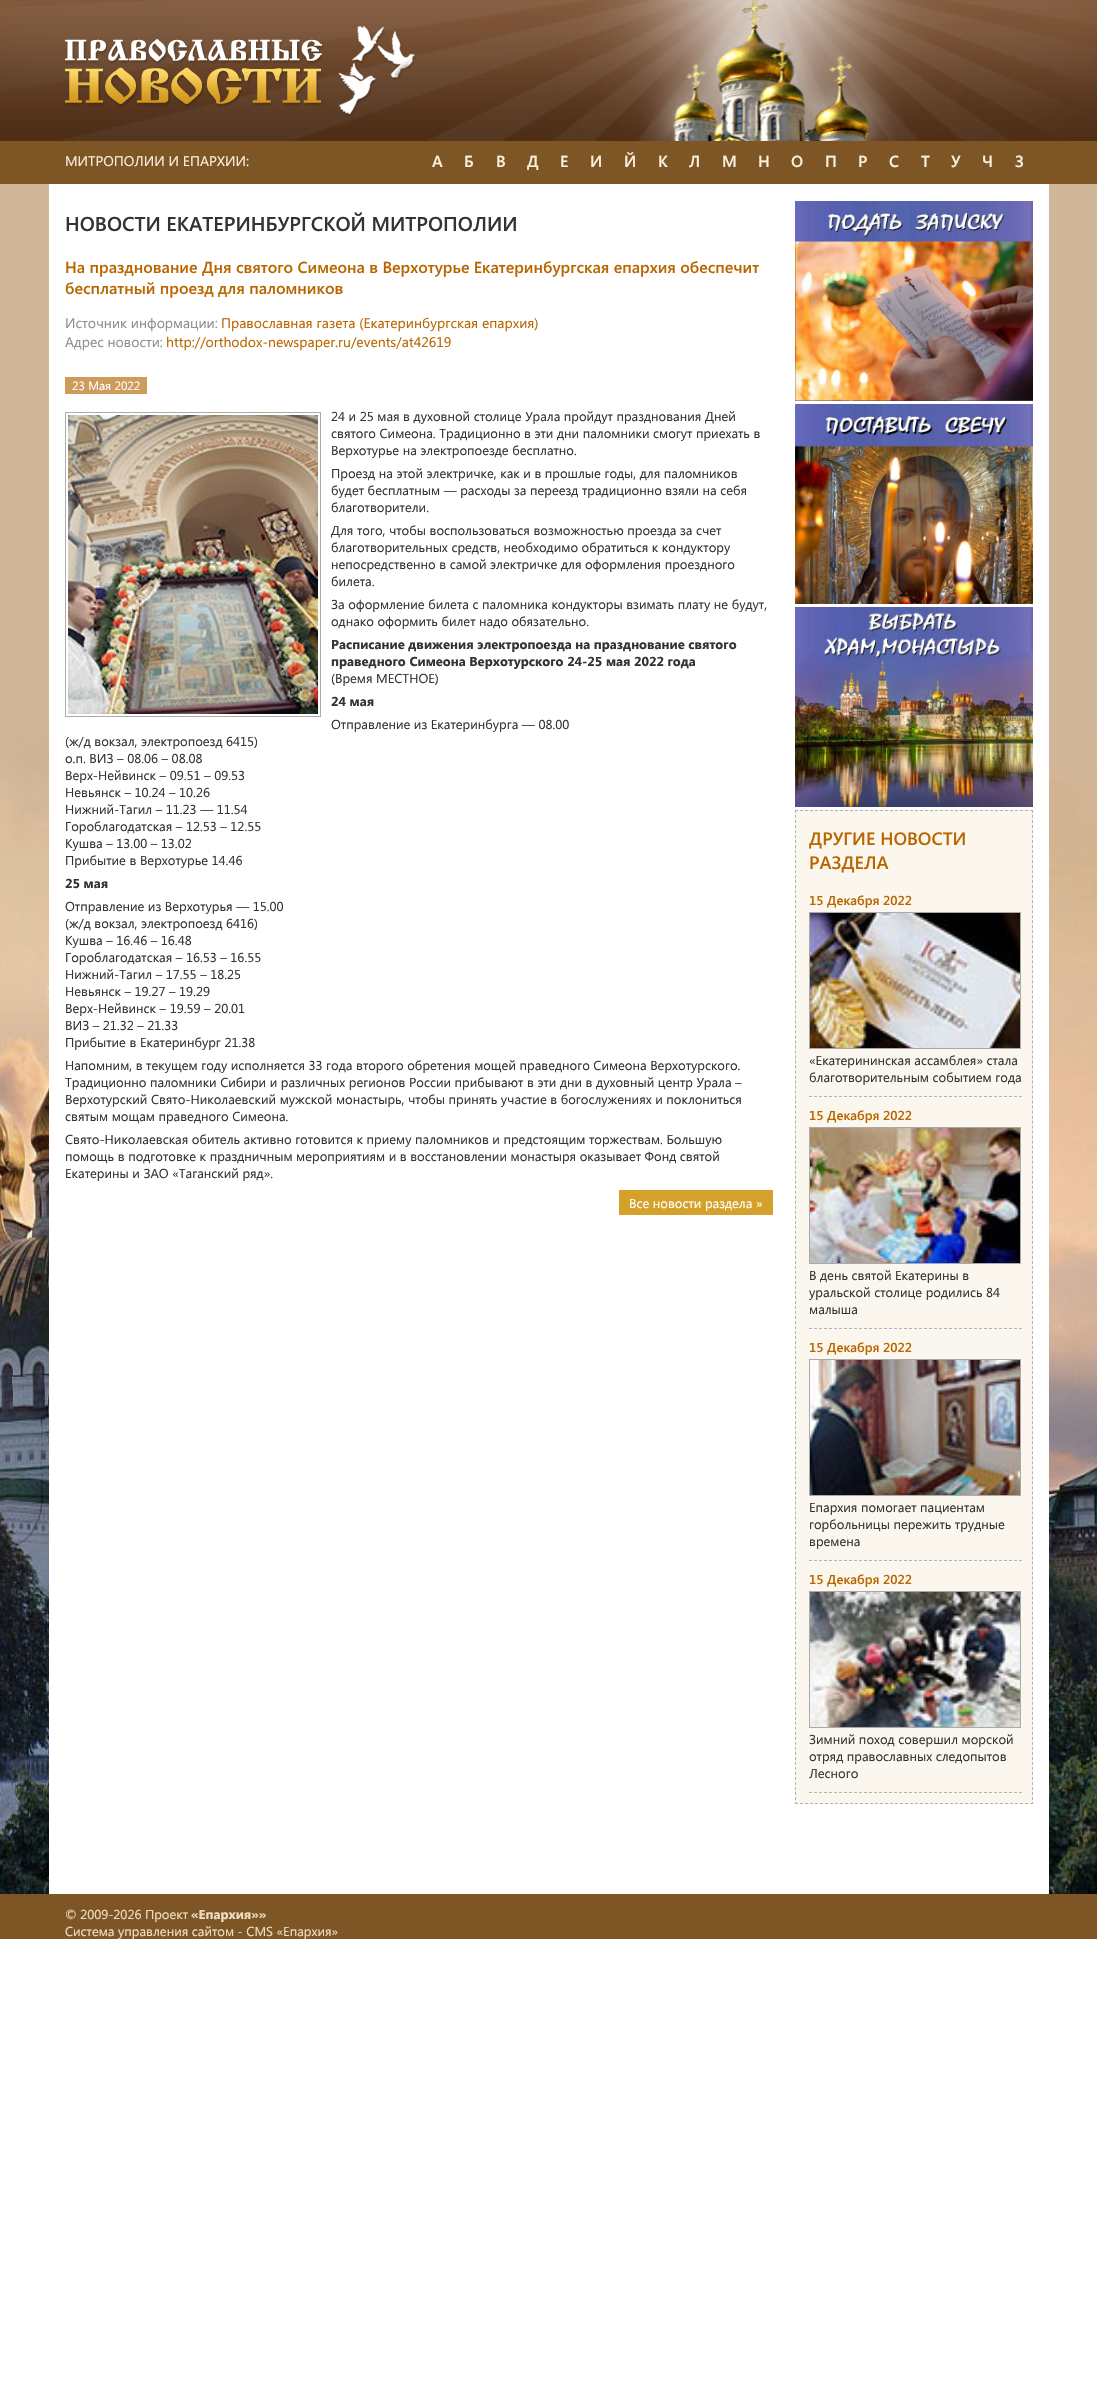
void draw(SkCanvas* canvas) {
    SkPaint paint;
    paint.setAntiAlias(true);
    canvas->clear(0xFFFFFFFF);
    canvas->drawImageRect(SkImages::DeferredFromEncodedData(SkData::MakeFromFileName("img1.png")), SkRect::MakeXYWH(0, 0, 1097, 141), SkSamplingOptions());
    canvas->drawImageRect(SkImages::DeferredFromEncodedData(SkData::MakeFromFileName("img2.png")), SkRect::MakeXYWH(65, 25, 351, 92), SkSamplingOptions());
    paint.setColor(0xFF7E5524);
    canvas->drawRect(SkRect::MakeXYWH(0, 141, 1097, 43), paint);
    SkFont font1(fontMgr->matchFamilyStyle("Segoe UI", SkFontStyle::Normal()), 14);
    font1.setSubpixel(true);
    paint.setColor(0xFFF9F0DE);
    canvas->drawString("МИТРОПОЛИИ И ЕПАРХИИ:", 65, 166, font1, paint);
    SkFont font2(fontMgr->matchFamilyStyle("Segoe UI", SkFontStyle(600, SkFontStyle::kNormal_Width, SkFontStyle::kUpright_Slant)), 16);
    font2.setSubpixel(true);
    canvas->drawString("А", 432, 167, font2, paint);
    canvas->drawString("Б", 464, 167, font2, paint);
    canvas->drawString("В", 496, 167, font2, paint);
    canvas->drawString("Д", 527, 167, font2, paint);
    canvas->drawString("Е", 560, 167, font2, paint);
    canvas->drawString("И", 590, 167, font2, paint);
    canvas->drawString("Й", 624, 167, font2, paint);
    canvas->drawString("К", 658, 167, font2, paint);
    canvas->drawString("Л", 689, 167, font2, paint);
    canvas->drawString("М", 722, 167, font2, paint);
    canvas->drawString("Н", 758, 167, font2, paint);
    canvas->drawString("О", 791, 167, font2, paint);
    canvas->drawString("П", 825, 167, font2, paint);
    canvas->drawString("Р", 858, 167, font2, paint);
    canvas->drawString("С", 889, 167, font2, paint);
    canvas->drawString("Т", 921, 167, font2, paint);
    canvas->drawString("У", 951, 167, font2, paint);
    canvas->drawString("Ч", 982, 167, font2, paint);
    canvas->drawString("З", 1015, 167, font2, paint);
    paint.setColor(0xFFD0B799);
    canvas->drawRect(SkRect::MakeXYWH(0, 184, 1097, 510), paint);
    canvas->drawImageRect(SkImages::DeferredFromEncodedData(SkData::MakeFromFileName("img3.png")), SkRect::MakeXYWH(0, 694, 1097, 1200), SkSamplingOptions());
    paint.setColor(0xFFFFFFFF);
    canvas->drawRect(SkRect::MakeXYWH(49, 184, 1000, 1710), paint);
    SkFont font3(fontMgr->matchFamilyStyle("Segoe UI", SkFontStyle(600, SkFontStyle::kNormal_Width, SkFontStyle::kUpright_Slant)), 20);
    font3.setSubpixel(true);
    paint.setColor(0xFF333333);
    canvas->drawString("НОВОСТИ ЕКАТЕРИНБУРГСКОЙ МИТРОПОЛИИ", 65, 231, font3, paint);
    paint.setColor(0xFFB96600);
    canvas->drawString("На празднование Дня святого Симеона в Верхотурье Екатеринбургская епархия обеспечит", 65, 273, font2, paint);
    canvas->drawString("бесплатный проезд для паломников", 65, 294, font2, paint);
    paint.setColor(0xFF8E8E8E);
    canvas->drawString("Источник информации:", 65, 328, font1, paint);
    paint.setColor(0xFFB96600);
    canvas->drawString("Православная газета (Екатеринбургская епархия)", 221, 328, font1, paint);
    paint.setColor(0xFF8E8E8E);
    canvas->drawString("Адрес новости:", 65, 347, font1, paint);
    paint.setColor(0xFFB96600);
    canvas->drawString("http://orthodox-newspaper.ru/events/at42619", 166, 347, font1, paint);
    paint.setColor(0xFFCF9B5B);
    canvas->drawRect(SkRect::MakeXYWH(65, 377, 82, 17), paint);
    SkFont font4(fontMgr->matchFamilyStyle("Segoe UI", SkFontStyle::Normal()), 12);
    font4.setSubpixel(true);
    paint.setColor(0xFFFFFFFF);
    canvas->drawString("23 Мая 2022", 72, 390, font4, paint);
    SkFont font5(fontMgr->matchFamilyStyle("Segoe UI", SkFontStyle::Normal()), 13);
    font5.setSubpixel(true);
    paint.setColor(0xFF333333);
    canvas->drawString("24 и 25 мая в духовной столице Урала пройдут празднования Дней", 331, 421, font5, paint);
    canvas->drawString("святого Симеона. Традиционно в эти дни паломники смогут приехать в", 331, 438, font5, paint);
    canvas->drawString("Верхотурье на электропоезде бесплатно.", 331, 455, font5, paint);
    canvas->drawString("Проезд на этой электричке, как и в прошлые годы, для паломников", 331, 478, font5, paint);
    canvas->drawString("будет бесплатным — расходы за переезд традиционно взяли на себя", 331, 495, font5, paint);
    canvas->drawString("благотворители.", 331, 512, font5, paint);
    canvas->drawString("Для того, чтобы воспользоваться возможностью проезда за счет", 331, 535, font5, paint);
    canvas->drawString("благотворительных средств, необходимо обратиться к кондуктору", 331, 552, font5, paint);
    canvas->drawString("непосредственно в самой электричке для оформления проездного", 331, 569, font5, paint);
    canvas->drawString("билета.", 331, 586, font5, paint);
    canvas->drawString("За оформление билета с паломника кондукторы взимать плату не будут,", 331, 609, font5, paint);
    canvas->drawString("однако оформить билет надо обязательно.", 331, 626, font5, paint);
    SkFont font6(fontMgr->matchFamilyStyle("Segoe UI", SkFontStyle::Bold()), 13);
    font6.setSubpixel(true);
    canvas->drawString("Расписание движения электропоезда на празднование святого", 331, 649, font6, paint);
    canvas->drawString("праведного Симеона Верхотурского 24-25 мая 2022 года", 331, 666, font6, paint);
    canvas->drawString("(Время МЕСТНОЕ)", 331, 683, font5, paint);
    canvas->drawString("24 мая", 331, 706, font6, paint);
    canvas->drawString("Отправление из Екатеринбурга — 08.00", 331, 729, font5, paint);
    canvas->drawString("(ж/д вокзал, электропоезд 6415)", 65, 746, font5, paint);
    canvas->drawString("о.п. ВИЗ – 08.06 – 08.08", 65, 763, font5, paint);
    canvas->drawString("Верх-Нейвинск – 09.51 – 09.53", 65, 780, font5, paint);
    canvas->drawString("Невьянск – 10.24 – 10.26", 65, 797, font5, paint);
    canvas->drawString("Нижний-Тагил – 11.23 — 11.54", 65, 814, font5, paint);
    canvas->drawString("Гороблагодатская – 12.53 – 12.55", 65, 831, font5, paint);
    canvas->drawString("Кушва – 13.00 – 13.02", 65, 848, font5, paint);
    canvas->drawString("Прибытие в Верхотурье 14.46", 65, 865, font5, paint);
    canvas->drawString("25 мая", 65, 888, font6, paint);
    canvas->drawString("Отправление из Верхотурья — 15.00", 65, 911, font5, paint);
    canvas->drawString("(ж/д вокзал, электропоезд 6416)", 65, 928, font5, paint);
    canvas->drawString("Кушва – 16.46 – 16.48", 65, 945, font5, paint);
    canvas->drawString("Гороблагодатская – 16.53 – 16.55", 65, 962, font5, paint);
    canvas->drawString("Нижний-Тагил – 17.55 – 18.25", 65, 979, font5, paint);
    canvas->drawString("Невьянск – 19.27 – 19.29", 65, 996, font5, paint);
    canvas->drawString("Верх-Нейвинск – 19.59 – 20.01", 65, 1013, font5, paint);
    canvas->drawString("ВИЗ – 21.32 – 21.33", 65, 1030, font5, paint);
    canvas->drawString("Прибытие в Екатеринбург 21.38", 65, 1047, font5, paint);
    canvas->drawString("Напомним, в текущем году исполняется 33 года второго обретения мощей праведного Симеона Верхотурского.", 65, 1070, font5, paint);
    canvas->drawString("Традиционно паломники Сибири и различных регионов России прибывают в эти дни в духовный центр Урала –", 65, 1087, font5, paint);
    canvas->drawString("Верхотурский Свято-Николаевский мужской монастырь, чтобы принять участие в богослужениях и поклониться", 65, 1104, font5, paint);
    canvas->drawString("святым мощам праведного Симеона.", 65, 1121, font5, paint);
    canvas->drawString("Свято-Николаевская обитель активно готовится к приему паломников и предстоящим торжествам. Большую", 65, 1144, font5, paint);
    canvas->drawString("помощь в подготовке к праздничным мероприятиям и в восстановлении монастыря оказывает Фонд святой", 65, 1161, font5, paint);
    canvas->drawString("Екатерины и ЗАО «Таганский ряд».", 65, 1178, font5, paint);
    paint.setStyle(SkPaint::kStroke_Style);
    paint.setStrokeWidth(1);
    paint.setColor(0xFFAAAAAA);
    canvas->drawRect(SkRect::MakeXYWH(65.5f, 412.5f, 255, 304), paint);
    canvas->drawImageRect(SkImages::DeferredFromEncodedData(SkData::MakeFromFileName("img4.png")), SkRect::MakeXYWH(68, 415, 250, 299), SkSamplingOptions());
    paint.setStyle(SkPaint::kFill_Style);
    paint.setColor(0xFFD5A12B);
    canvas->drawRect(SkRect::MakeXYWH(619, 1190, 154, 25), paint);
    paint.setColor(0xFFFFFFFF);
    canvas->drawString("Все новости раздела »", 629, 1208, font5, paint);
    canvas->drawImageRect(SkImages::DeferredFromEncodedData(SkData::MakeFromFileName("img5.png")), SkRect::MakeXYWH(795, 201, 238, 200), SkSamplingOptions());
    canvas->drawImageRect(SkImages::DeferredFromEncodedData(SkData::MakeFromFileName("img6.png")), SkRect::MakeXYWH(795, 404, 238, 200), SkSamplingOptions());
    canvas->drawImageRect(SkImages::DeferredFromEncodedData(SkData::MakeFromFileName("img7.png")), SkRect::MakeXYWH(795, 607, 238, 200), SkSamplingOptions());
    paint.setColor(0xFFFCF7EE);
    canvas->drawRect(SkRect::MakeXYWH(795, 810, 238, 994), paint);
    paint.setStyle(SkPaint::kStroke_Style);
    paint.setColor(0xFFB2B2B2);
    paint.setPathEffect(SkDashPathEffect::Make({{3, 2}}, 0));
    canvas->drawPath(SkPathBuilder().moveTo(795, 810.5f).lineTo(1033, 810.5f).detach(), paint);
    paint.setPathEffect(nullptr);
    paint.setPathEffect(SkDashPathEffect::Make({{3, 2.01f}}, 0));
    canvas->drawPath(SkPathBuilder().moveTo(1032.5f, 810).lineTo(1032.5f, 1804).detach(), paint);
    paint.setPathEffect(nullptr);
    paint.setPathEffect(SkDashPathEffect::Make({{3, 2}}, 0));
    canvas->drawPath(SkPathBuilder().moveTo(795, 1803.5f).lineTo(1033, 1803.5f).detach(), paint);
    paint.setPathEffect(nullptr);
    paint.setPathEffect(SkDashPathEffect::Make({{3, 2.01f}}, 0));
    canvas->drawPath(SkPathBuilder().moveTo(795.5f, 810).lineTo(795.5f, 1804).detach(), paint);
    paint.setPathEffect(nullptr);
    SkFont font7(fontMgr->matchFamilyStyle("Segoe UI", SkFontStyle(600, SkFontStyle::kNormal_Width, SkFontStyle::kUpright_Slant)), 18);
    font7.setSubpixel(true);
    paint.setStyle(SkPaint::kFill_Style);
    paint.setColor(0xFFB96600);
    canvas->drawString("ДРУГИЕ НОВОСТИ", 809, 845, font7, paint);
    canvas->drawString("РАЗДЕЛА", 809, 869, font7, paint);
    paint.setStyle(SkPaint::kStroke_Style);
    paint.setColor(0xFFB2B2B2);
    paint.setPathEffect(SkDashPathEffect::Make({{3, 2}}, 0));
    canvas->drawPath(SkPathBuilder().moveTo(809, 1096.5f).lineTo(1022, 1096.5f).detach(), paint);
    paint.setPathEffect(nullptr);
    SkFont font8(fontMgr->matchFamilyStyle("Segoe UI", SkFontStyle(600, SkFontStyle::kNormal_Width, SkFontStyle::kUpright_Slant)), 13);
    font8.setSubpixel(true);
    paint.setStyle(SkPaint::kFill_Style);
    paint.setColor(0xFFB96600);
    canvas->drawString("15 Декабря 2022", 809, 905, font8, paint);
    paint.setStyle(SkPaint::kStroke_Style);
    paint.setColor(0xFFAAAAAA);
    canvas->drawRect(SkRect::MakeXYWH(809.5f, 912.5f, 211, 136), paint);
    canvas->drawImageRect(SkImages::DeferredFromEncodedData(SkData::MakeFromFileName("img8.png")), SkRect::MakeXYWH(810, 913, 210, 135), SkSamplingOptions());
    paint.setStyle(SkPaint::kFill_Style);
    paint.setColor(0xFF333333);
    canvas->drawString("«Екатерининская ассамблея» стала", 809, 1065, font5, paint);
    canvas->drawString("благотворительным событием года", 809, 1082, font5, paint);
    paint.setStyle(SkPaint::kStroke_Style);
    paint.setColor(0xFFB2B2B2);
    paint.setPathEffect(SkDashPathEffect::Make({{3, 2}}, 0));
    canvas->drawPath(SkPathBuilder().moveTo(809, 1328.5f).lineTo(1022, 1328.5f).detach(), paint);
    paint.setPathEffect(nullptr);
    paint.setStyle(SkPaint::kFill_Style);
    paint.setColor(0xFFB96600);
    canvas->drawString("15 Декабря 2022", 809, 1120, font8, paint);
    paint.setStyle(SkPaint::kStroke_Style);
    paint.setColor(0xFFAAAAAA);
    canvas->drawRect(SkRect::MakeXYWH(809.5f, 1127.5f, 211, 136), paint);
    canvas->drawImageRect(SkImages::DeferredFromEncodedData(SkData::MakeFromFileName("img9.png")), SkRect::MakeXYWH(810, 1128, 210, 135), SkSamplingOptions());
    paint.setStyle(SkPaint::kFill_Style);
    paint.setColor(0xFF333333);
    canvas->drawString("В день святой Екатерины в", 809, 1280, font5, paint);
    canvas->drawString("уральской столице родились 84", 809, 1297, font5, paint);
    canvas->drawString("малыша", 809, 1314, font5, paint);
    paint.setStyle(SkPaint::kStroke_Style);
    paint.setColor(0xFFB2B2B2);
    paint.setPathEffect(SkDashPathEffect::Make({{3, 2}}, 0));
    canvas->drawPath(SkPathBuilder().moveTo(809, 1560.5f).lineTo(1022, 1560.5f).detach(), paint);
    paint.setPathEffect(nullptr);
    paint.setStyle(SkPaint::kFill_Style);
    paint.setColor(0xFFB96600);
    canvas->drawString("15 Декабря 2022", 809, 1352, font8, paint);
    paint.setStyle(SkPaint::kStroke_Style);
    paint.setColor(0xFFAAAAAA);
    canvas->drawRect(SkRect::MakeXYWH(809.5f, 1359.5f, 211, 136), paint);
    canvas->drawImageRect(SkImages::DeferredFromEncodedData(SkData::MakeFromFileName("img10.png")), SkRect::MakeXYWH(810, 1360, 210, 135), SkSamplingOptions());
    paint.setStyle(SkPaint::kFill_Style);
    paint.setColor(0xFF333333);
    canvas->drawString("Епархия помогает пациентам", 809, 1512, font5, paint);
    canvas->drawString("горбольницы пережить трудные", 809, 1529, font5, paint);
    canvas->drawString("времена", 809, 1546, font5, paint);
    paint.setStyle(SkPaint::kStroke_Style);
    paint.setColor(0xFFB2B2B2);
    paint.setPathEffect(SkDashPathEffect::Make({{3, 2}}, 0));
    canvas->drawPath(SkPathBuilder().moveTo(809, 1792.5f).lineTo(1022, 1792.5f).detach(), paint);
    paint.setPathEffect(nullptr);
    paint.setStyle(SkPaint::kFill_Style);
    paint.setColor(0xFFB96600);
    canvas->drawString("15 Декабря 2022", 809, 1584, font8, paint);
    paint.setStyle(SkPaint::kStroke_Style);
    paint.setColor(0xFFAAAAAA);
    canvas->drawRect(SkRect::MakeXYWH(809.5f, 1591.5f, 211, 136), paint);
    canvas->drawImageRect(SkImages::DeferredFromEncodedData(SkData::MakeFromFileName("img11.png")), SkRect::MakeXYWH(810, 1592, 210, 135), SkSamplingOptions());
    paint.setStyle(SkPaint::kFill_Style);
    paint.setColor(0xFF333333);
    canvas->drawString("Зимний поход совершил морской", 809, 1744, font5, paint);
    canvas->drawString("отряд православных следопытов", 809, 1761, font5, paint);
    canvas->drawString("Лесного", 809, 1778, font5, paint);
    paint.setColor(0xFF7E5524);
    canvas->drawRect(SkRect::MakeXYWH(0, 1894, 1097, 45), paint);
    paint.setColor(0xFFEBDEC4);
    canvas->drawString("© 2009-2026 Проект", 65, 1919, font5, paint);
    canvas->drawString("«Епархия»»", 191, 1919, font6, paint);
    canvas->drawString("Система управления сайтом - CMS «Епархия»", 65, 1936, font5, paint);
}
